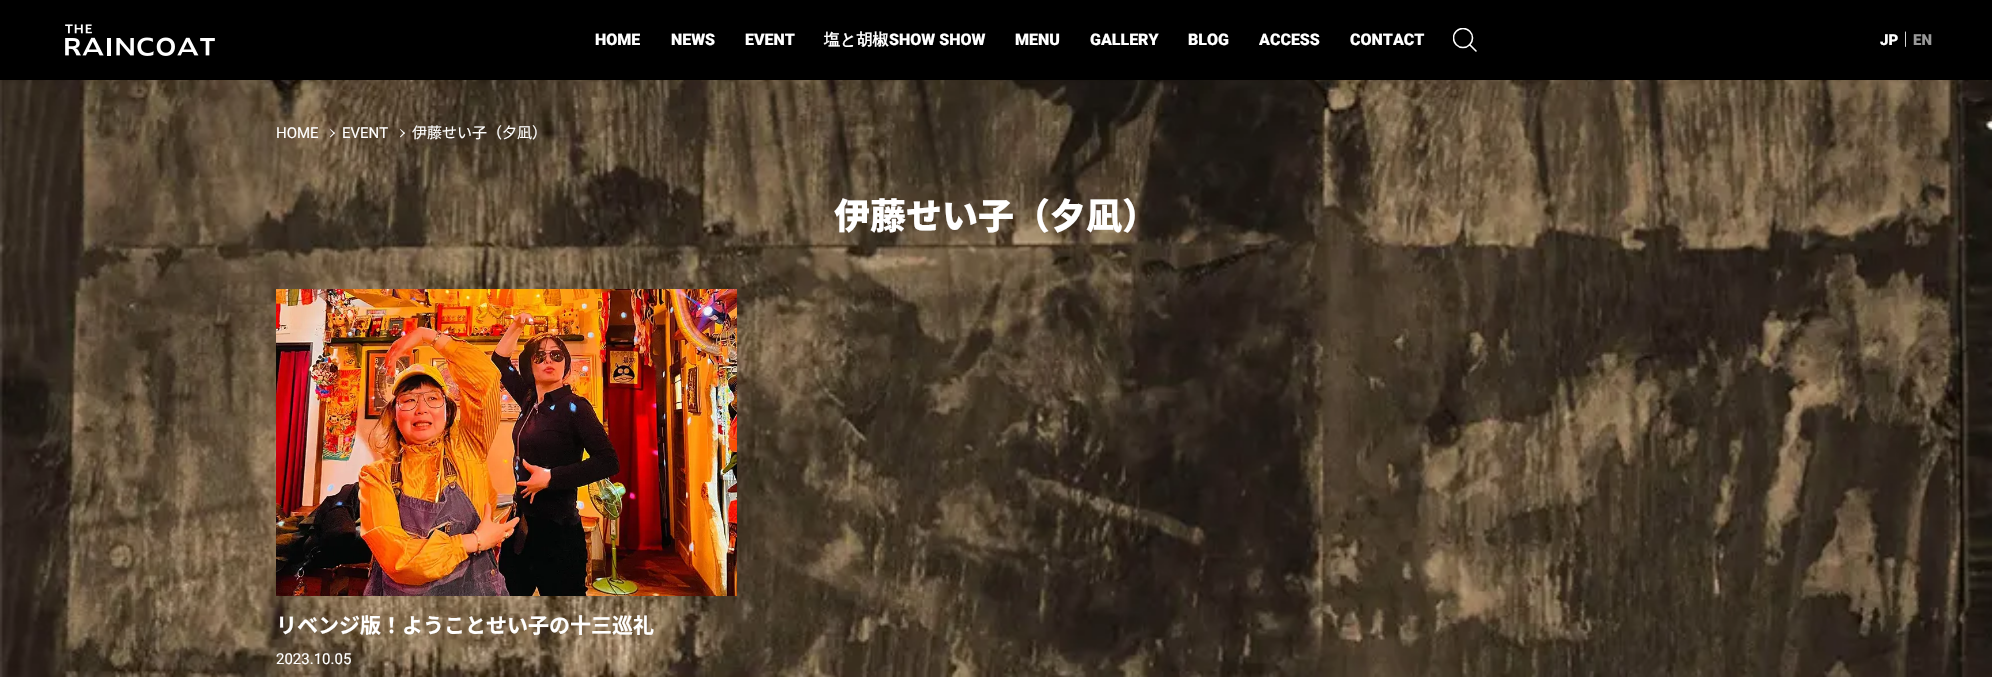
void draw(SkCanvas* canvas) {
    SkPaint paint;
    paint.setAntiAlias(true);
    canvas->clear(0xFFFFFFFF);
    paint.setColor(0xFF000000);
    canvas->drawRect(SkRect::MakeXYWH(0, 0, 1992, 80), paint);
    canvas->drawImageRect(SkImages::DeferredFromEncodedData(SkData::MakeFromFileName("img1.png")), SkRect::MakeXYWH(65, 24, 150, 32), SkSamplingOptions());
    SkFont font1(fontMgr->matchFamilyStyle("Roboto", SkFontStyle(900, SkFontStyle::kNormal_Width, SkFontStyle::kUpright_Slant)), 16);
    font1.setSubpixel(true);
    paint.setColor(0xFFFFFFFF);
    canvas->drawString("HOME", 595, 45, font1, paint);
    canvas->drawString("NEWS", 671, 45, font1, paint);
    canvas->drawString("EVENT", 745, 45, font1, paint);
    SkFont font2(fontMgr->matchFamilyStyle("WenQuanYi Zen Hei", SkFontStyle::Bold()), 16);
    font2.setSubpixel(true);
    canvas->drawString("塩と胡椒", 824, 45, font2, paint);
    canvas->drawString("SHOW SHOW", 889, 45, font1, paint);
    canvas->drawString("MENU", 1015, 45, font1, paint);
    canvas->drawString("GALLERY", 1090, 45, font1, paint);
    canvas->drawString("BLOG", 1188, 45, font1, paint);
    canvas->drawString("ACCESS", 1259, 45, font1, paint);
    canvas->drawString("CONTACT", 1350, 45, font1, paint);
    canvas->save();
    canvas->clipRect(SkRect::MakeXYWH(1453, 28, 24, 24));
    paint.setStyle(SkPaint::kStroke_Style);
    paint.setStrokeWidth(1.6f);
    canvas->drawCircle(1463, 38, 9.5f, paint);
    canvas->restore();
    paint.setStrokeCap(SkPaint::kRound_Cap);
    canvas->drawPath(SkPathBuilder().moveTo(1469.5f, 44.5f).lineTo(1476, 51).detach(), paint);
    SkFont font3(fontMgr->matchFamilyStyle("Roboto", SkFontStyle(900, SkFontStyle::kNormal_Width, SkFontStyle::kUpright_Slant)), 15);
    font3.setSubpixel(true);
    paint.setStyle(SkPaint::kFill_Style);
    canvas->drawString("JP", 1880, 45, font3, paint);
    SkFont font4(fontMgr->matchFamilyStyle("Noto Sans JP", SkFontStyle(900, SkFontStyle::kNormal_Width, SkFontStyle::kUpright_Slant)), 15);
    font4.setSubpixel(true);
    canvas->drawString("｜", 1898, 45, font4, paint);
    paint.setColor(0xFF999999);
    canvas->drawString("EN", 1913, 45, font3, paint);
    canvas->drawImageRect(SkImages::DeferredFromEncodedData(SkData::MakeFromFileName("img2.png")), SkRect::MakeXYWH(0, 80, 1992, 597), SkSamplingOptions());
    SkFont font5(fontMgr->matchFamilyStyle("Roboto", SkFontStyle::Normal()), 15);
    font5.setSubpixel(true);
    paint.setColor(0xFFFFFFFF);
    canvas->drawString("HOME", 276, 138, font5, paint);
    canvas->drawPath(SkPathBuilder().moveTo(330, 129.5f).lineTo(330.5f, 129).lineTo(335, 133).lineTo(334, 134).close().detach(), paint);
    canvas->drawPath(SkPathBuilder().moveTo(330, 136.5f).lineTo(334, 132.5f).lineTo(335, 133).lineTo(330.5f, 137.5f).close().detach(), paint);
    canvas->drawString("EVENT", 342, 138, font5, paint);
    canvas->drawPath(SkPathBuilder().moveTo(400, 129.5f).lineTo(400.5f, 129).lineTo(405, 133).lineTo(404, 134).close().detach(), paint);
    canvas->drawPath(SkPathBuilder().moveTo(400, 136.5f).lineTo(404, 132.5f).lineTo(405, 133).lineTo(400.5f, 137.5f).close().detach(), paint);
    SkFont font6(fontMgr->matchFamilyStyle("Noto Sans JP", SkFontStyle::Normal()), 15);
    font6.setSubpixel(true);
    canvas->drawString("伊藤せい子（夕凪）", 412, 138, font6, paint);
    SkFont font7(fontMgr->matchFamilyStyle("Noto Sans JP", SkFontStyle(900, SkFontStyle::kNormal_Width, SkFontStyle::kUpright_Slant)), 36);
    font7.setSubpixel(true);
    canvas->drawString("伊藤せい子（夕凪）", 834, 229, font7, paint);
    canvas->drawImageRect(SkImages::DeferredFromEncodedData(SkData::MakeFromFileName("img3.png")), SkRect::MakeXYWH(276, 289, 461, 307), SkSamplingOptions());
    SkFont font8(fontMgr->matchFamilyStyle("Noto Sans JP", SkFontStyle::Bold()), 21);
    font8.setSubpixel(true);
    canvas->drawString("リベンジ版！ようことせい子の十三巡礼", 276, 633, font8, paint);
    canvas->drawString("2023.10.05", 276, 664, font5, paint);
}
